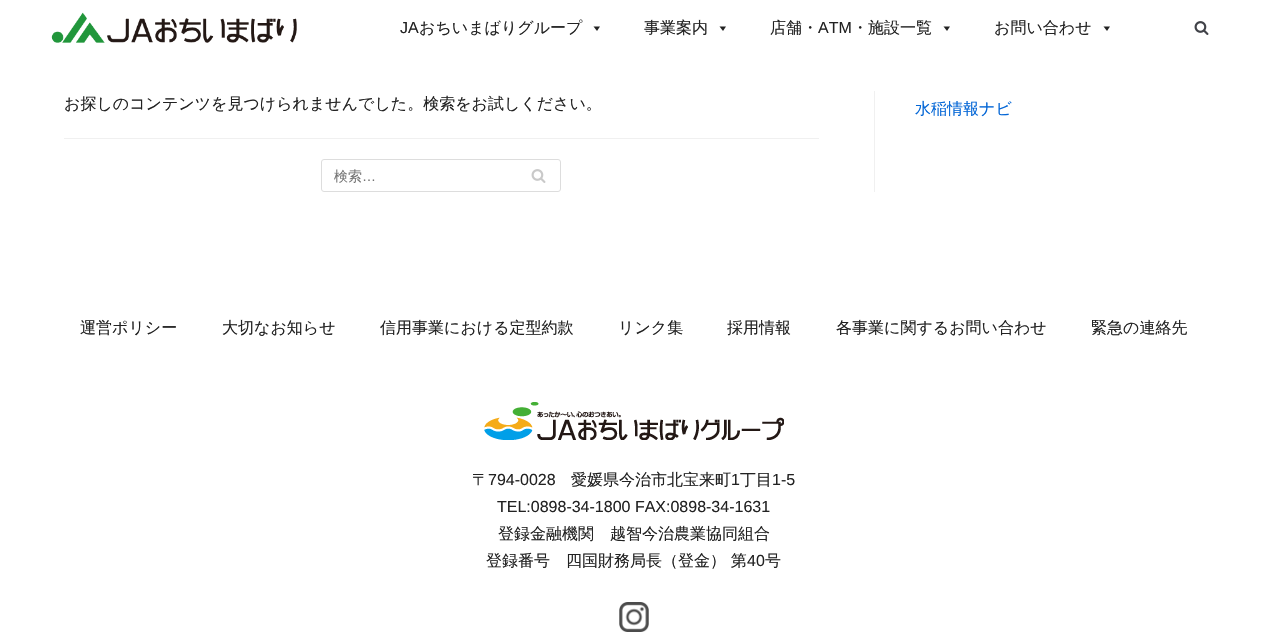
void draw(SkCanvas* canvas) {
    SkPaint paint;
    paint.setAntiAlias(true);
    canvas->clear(0xFFFFFFFF);
    canvas->drawImageRect(SkImages::DeferredFromEncodedData(SkData::MakeFromFileName("img1.png")), SkRect::MakeXYWH(51, 12, 246, 31), SkSamplingOptions());
    SkFont font1(fontMgr->matchFamilyStyle("Liberation Sans", SkFontStyle::Normal()), 16);
    font1.setSubpixel(true);
    paint.setColor(0xFF222222);
    canvas->drawString("JA", 400, 33, font1, paint);
    SkFont font2(fontMgr->matchFamilyStyle("WenQuanYi Zen Hei", SkFontStyle(500, SkFontStyle::kNormal_Width, SkFontStyle::kUpright_Slant)), 16);
    font2.setSubpixel(true);
    canvas->drawString("おちいまばりグループ", 419, 33, font2, paint);
    canvas->drawPath(SkPathBuilder().moveTo(600, 26.5f).lineTo(597, 31).lineTo(593.5f, 26.5f).close().detach(), paint);
    canvas->drawString("事業案内", 644, 33, font2, paint);
    canvas->drawPath(SkPathBuilder().moveTo(726, 26.5f).lineTo(723, 31).lineTo(719.5f, 26.5f).close().detach(), paint);
    canvas->drawString("店舗・", 770, 33, font2, paint);
    canvas->drawString("ATM", 818, 33, font1, paint);
    canvas->drawString("・施設一覧", 852, 33, font2, paint);
    canvas->drawPath(SkPathBuilder().moveTo(950, 26.5f).lineTo(947, 31).lineTo(943.5f, 26.5f).close().detach(), paint);
    canvas->drawString("お問い合わせ", 994, 33, font2, paint);
    canvas->drawPath(SkPathBuilder().moveTo(1110, 26.5f).lineTo(1107, 31).lineTo(1103.5f, 26.5f).close().detach(), paint);
    canvas->drawImageRect(SkImages::DeferredFromEncodedData(SkData::MakeFromFileName("img2.png")), SkRect::MakeXYWH(1194, 21, 15, 14), SkSamplingOptions());
    canvas->drawString("お探しのコンテンツを見つけられませんでした。検索をお試しください。", 64, 109, font2, paint);
    paint.setColor(0xFFF0F0F0);
    canvas->drawRect(SkRect::MakeXYWH(64, 138, 755, 1), paint);
    paint.setStyle(SkPaint::kStroke_Style);
    paint.setStrokeWidth(1);
    paint.setColor(0xFFDDDDDD);
    canvas->drawRoundRect(SkRect::MakeXYWH(321.5f, 159.5f, 239, 32), 2.5f, 2.5f, paint);
    SkFont font3(fontMgr->matchFamilyStyle("WenQuanYi Zen Hei", SkFontStyle(500, SkFontStyle::kNormal_Width, SkFontStyle::kUpright_Slant)), 14);
    font3.setSubpixel(true);
    paint.setStyle(SkPaint::kFill_Style);
    paint.setColor(0xFF757575);
    canvas->drawString("検索", 334, 181, font3, paint);
    SkFont font4(fontMgr->matchFamilyStyle("Liberation Sans", SkFontStyle::Normal()), 14);
    font4.setSubpixel(true);
    canvas->drawString("…", 362, 181, font4, paint);
    canvas->drawImageRect(SkImages::DeferredFromEncodedData(SkData::MakeFromFileName("img3.png")), SkRect::MakeXYWH(531, 169, 15, 14), SkSamplingOptions());
    paint.setColor(0xFFF0F0F0);
    canvas->drawRect(SkRect::MakeXYWH(874, 91, 1, 101), paint);
    paint.setColor(0xFF0366D6);
    canvas->drawString("水稲情報ナビ", 915, 114, font2, paint);
    paint.setColor(0xFF222222);
    canvas->drawString("運営ポリシー", 80, 333, font2, paint);
    canvas->drawString("大切なお知らせ", 222, 333, font2, paint);
    canvas->drawString("信用事業における定型約款", 380, 333, font2, paint);
    canvas->drawString("リンク集", 618, 333, font2, paint);
    canvas->drawString("採用情報", 727, 333, font2, paint);
    canvas->drawString("各事業に関するお問い合わせ", 836, 333, font2, paint);
    canvas->drawString("緊急の連絡先", 1091, 333, font2, paint);
    canvas->drawImageRect(SkImages::DeferredFromEncodedData(SkData::MakeFromFileName("img4.png")), SkRect::MakeXYWH(484, 402, 300, 38), SkSamplingOptions());
    canvas->drawString("〒", 472, 485, font2, paint);
    canvas->drawString("794-0028", 488, 485, font1, paint);
    canvas->drawString("愛媛県今治市北宝来町", 571, 485, font2, paint);
    canvas->drawString("1", 731, 485, font1, paint);
    canvas->drawString("丁目", 740, 485, font2, paint);
    canvas->drawString("1-5", 772, 485, font1, paint);
    canvas->drawString("TEL:0898-34-1800 FAX:0898-34-1631", 497, 512, font1, paint);
    canvas->drawString("登録金融機関　越智今治農業協同組合", 498, 539, font2, paint);
    canvas->drawString("登録番号　四国財務局長（登金） 第", 486, 566, font2, paint);
    canvas->drawString("40", 747, 566, font1, paint);
    canvas->drawString("号", 765, 566, font2, paint);
    canvas->drawImageRect(SkImages::DeferredFromEncodedData(SkData::MakeFromFileName("img5.png")), SkRect::MakeXYWH(619, 602, 30, 30), SkSamplingOptions());
}
